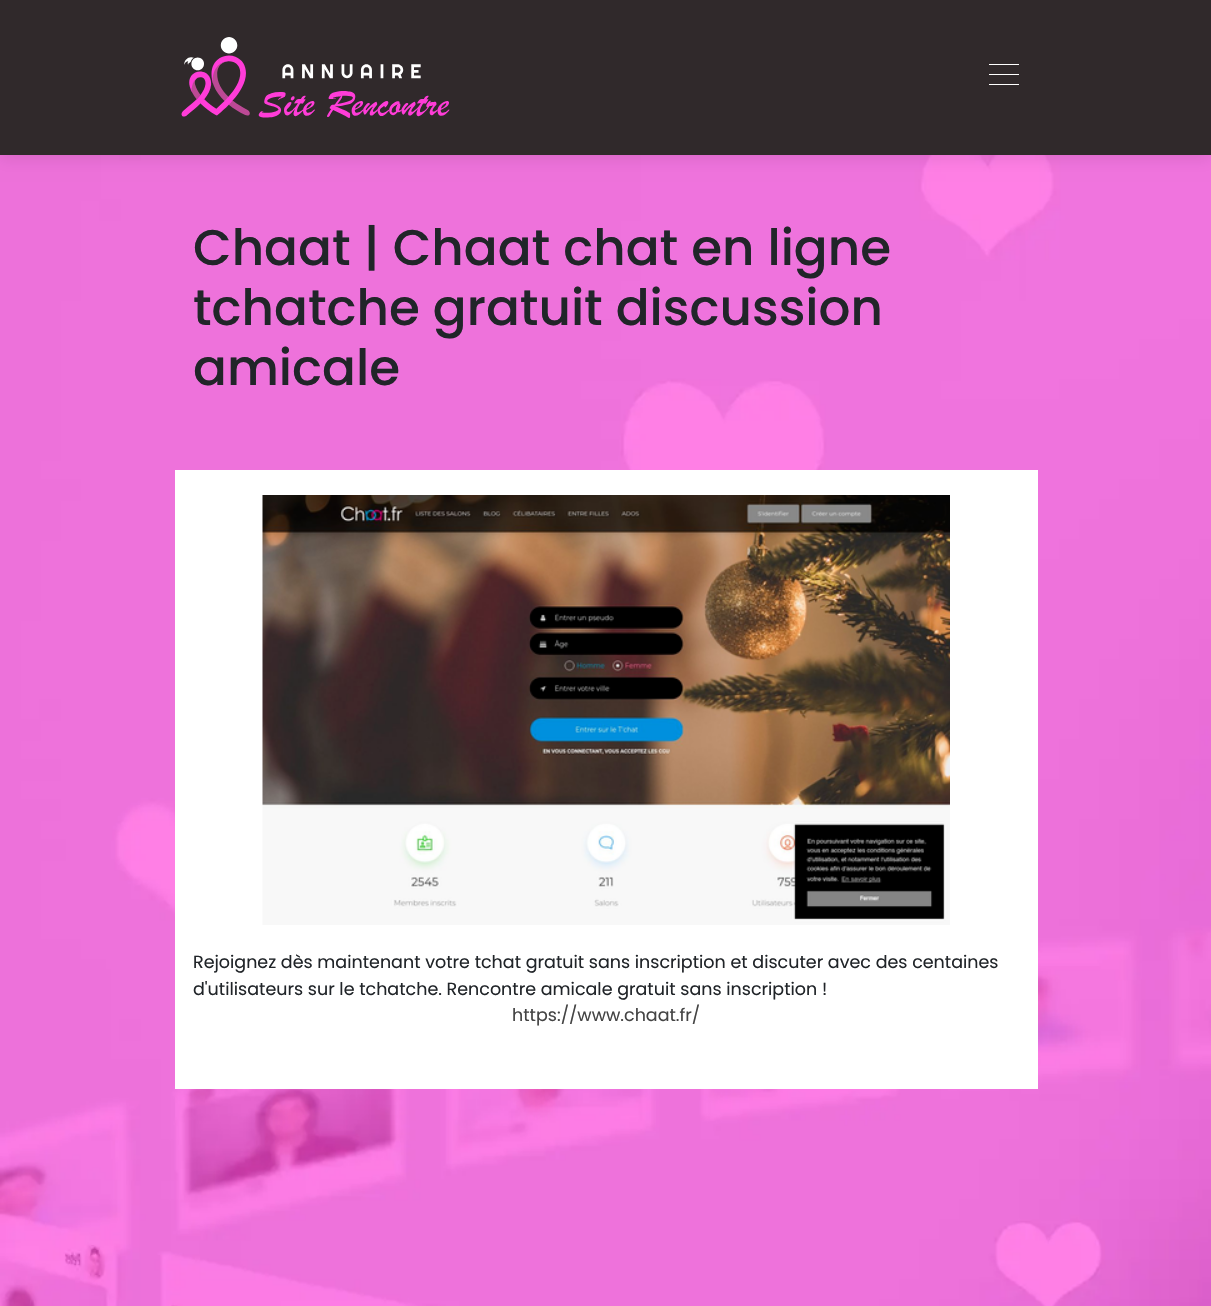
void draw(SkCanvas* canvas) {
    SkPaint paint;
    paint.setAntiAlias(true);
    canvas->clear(0xFFFFFFFF);
    canvas->drawImageRect(SkImages::DeferredFromEncodedData(SkData::MakeFromFileName("img1.png")), SkRect::MakeXYWH(0, 155, 1211, 1151), SkSamplingOptions());
    paint.setColor(0x1A000000);
    paint.setMaskFilter(SkMaskFilter::MakeBlur(kNormal_SkBlurStyle, 8));
    canvas->drawRect(SkRect::MakeXYWH(0, 3, 1211, 155), paint);
    paint.setMaskFilter(nullptr);
    paint.setColor(0xFF30292B);
    canvas->drawRect(SkRect::MakeXYWH(0, 0, 1211, 155), paint);
    canvas->drawImageRect(SkImages::DeferredFromEncodedData(SkData::MakeFromFileName("img2.png")), SkRect::MakeXYWH(181, 37, 269, 81), SkSamplingOptions());
    paint.setColor(0xFFFFFFFF);
    canvas->drawRect(SkRect::MakeXYWH(989, 64, 30, 1), paint);
    canvas->drawRect(SkRect::MakeXYWH(989, 74, 30, 1), paint);
    canvas->drawRect(SkRect::MakeXYWH(989, 84, 30, 1), paint);
    SkFont font1(fontMgr->matchFamilyStyle("Poppins", SkFontStyle(500, SkFontStyle::kNormal_Width, SkFontStyle::kUpright_Slant)), 50);
    font1.setSubpixel(true);
    paint.setColor(0xFF212529);
    canvas->drawString("Chaat | Chaat chat en ligne", 193, 265, font1, paint);
    canvas->drawString("tchatche gratuit discussion", 193, 325, font1, paint);
    canvas->drawString("amicale", 193, 385, font1, paint);
    paint.setColor(0xFFFFFFFF);
    canvas->drawRect(SkRect::MakeXYWH(175, 470, 863, 619), paint);
    canvas->drawImageRect(SkImages::DeferredFromEncodedData(SkData::MakeFromFileName("img3.png")), SkRect::MakeXYWH(262, 495, 688, 430), SkSamplingOptions());
    SkFont font2(fontMgr->matchFamilyStyle("Poppins", SkFontStyle::Normal()), 17.5f);
    font2.setSubpixel(true);
    paint.setColor(0xFF212529);
    canvas->drawString("Rejoignez dès maintenant votre tchat gratuit sans inscription et discuter avec des centaines", 193, 968, font2, paint);
    canvas->drawString("d'utilisateurs sur le tchatche. Rencontre amicale gratuit sans inscription !", 193, 995, font2, paint);
    paint.setColor(0xFF444444);
    canvas->drawString("https://www.chaat.fr/", 512, 1021, font2, paint);
}
